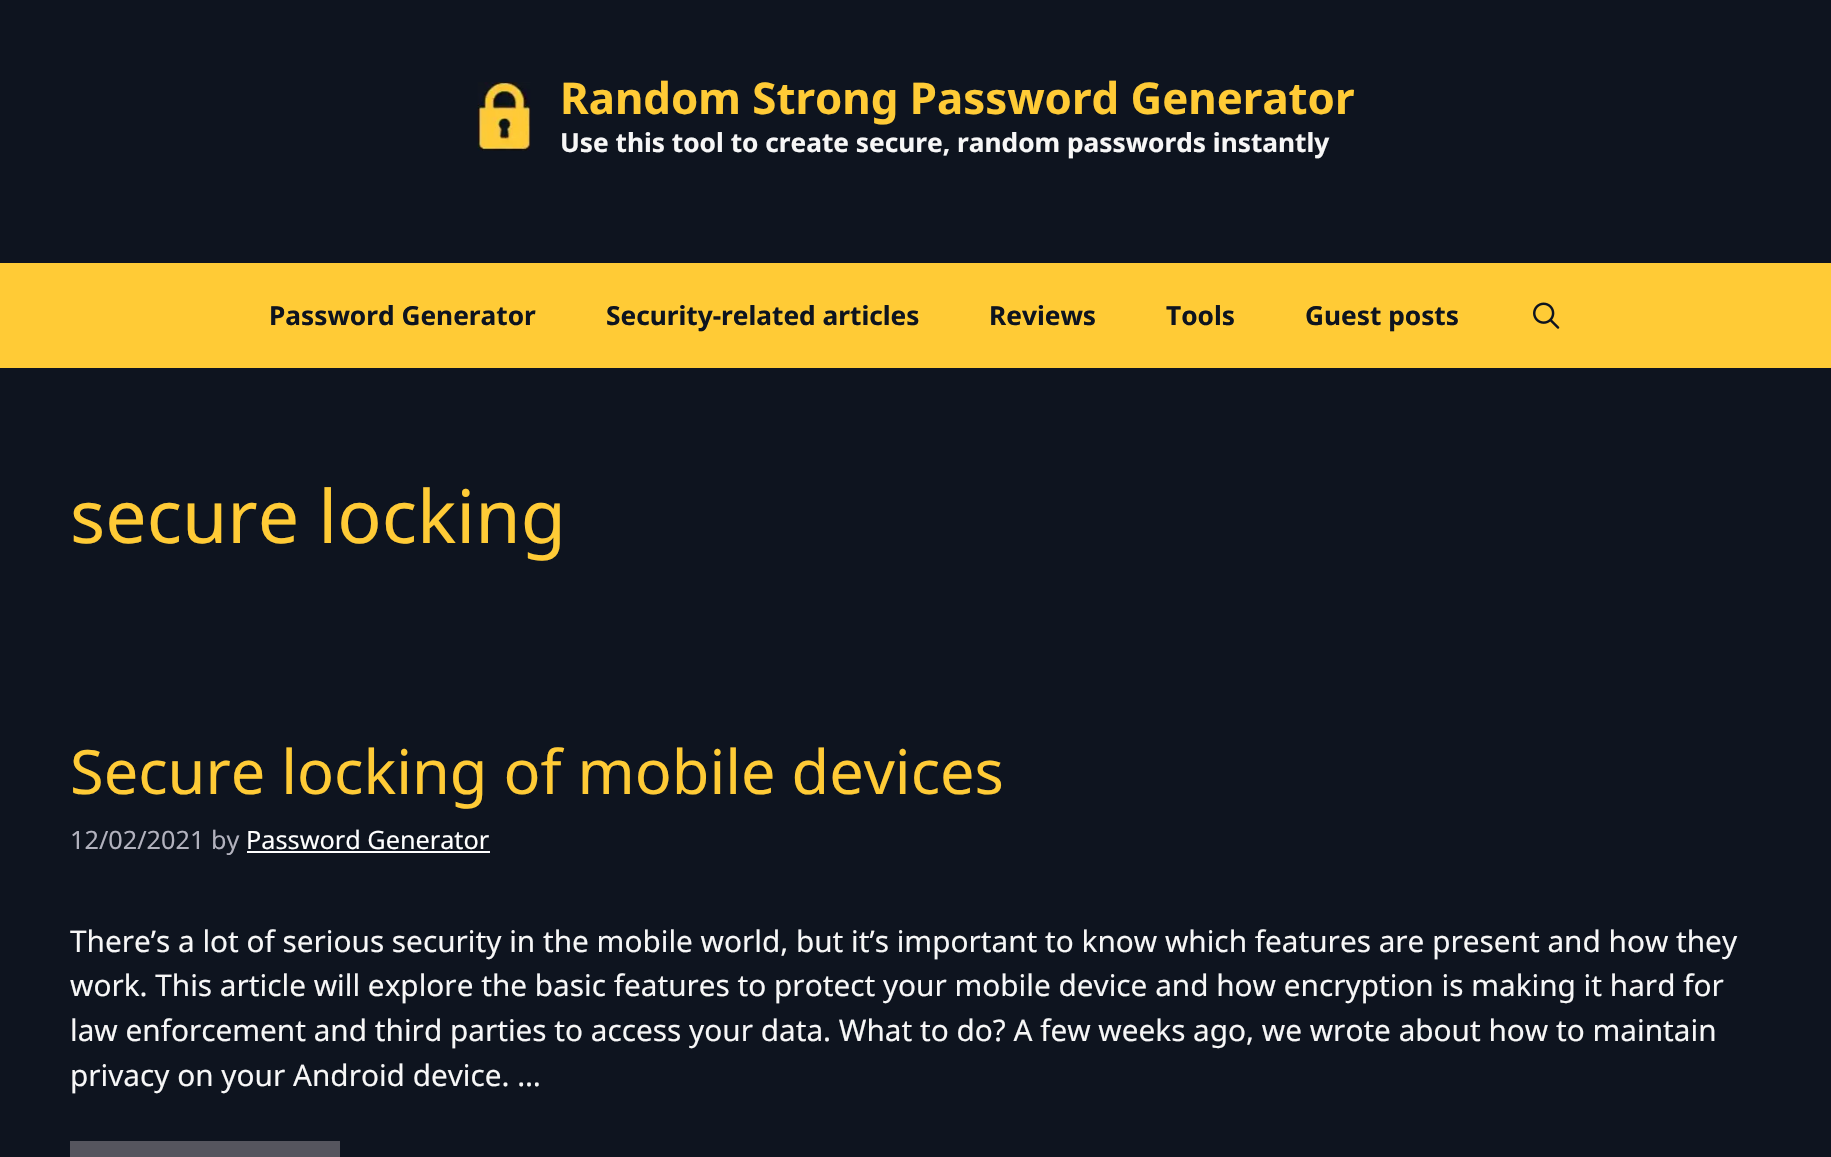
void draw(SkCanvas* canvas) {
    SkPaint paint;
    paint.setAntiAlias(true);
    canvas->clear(0xFF0E141F);
    canvas->drawImageRect(SkImages::DeferredFromEncodedData(SkData::MakeFromFileName("img1.png")), SkRect::MakeXYWH(477, 82, 54, 69), SkSamplingOptions());
    SkFont font1(fontMgr->matchFamilyStyle("Noto Sans", SkFontStyle::Bold()), 43.75f);
    font1.setSubpixel(true);
    paint.setColor(0xFFFFCB36);
    canvas->drawString("Random Strong Password Generator", 560, 114, font1, paint);
    SkFont font2(fontMgr->matchFamilyStyle("Noto Sans", SkFontStyle::Bold()), 26.25f);
    font2.setSubpixel(true);
    paint.setColor(0xFFF7F7F7);
    canvas->drawString("Use this tool to create secure, random passwords instantly", 560, 152, font2, paint);
    paint.setColor(0xFFFFCB36);
    canvas->drawRect(SkRect::MakeXYWH(0, 263, 1831, 105), paint);
    paint.setColor(0xFF0E141F);
    canvas->drawString("Password Generator", 269, 325, font2, paint);
    canvas->drawString("Security-related articles", 606, 325, font2, paint);
    canvas->drawString("Reviews", 989, 325, font2, paint);
    canvas->drawString("Tools", 1166, 325, font2, paint);
    canvas->drawString("Guest posts", 1305, 325, font2, paint);
    canvas->drawImageRect(SkImages::DeferredFromEncodedData(SkData::MakeFromFileName("img2.png")), SkRect::MakeXYWH(1533, 302, 27, 27), SkSamplingOptions());
    SkFont font3(fontMgr->matchFamilyStyle("Noto Sans", SkFontStyle::Normal()), 73.5f);
    font3.setSubpixel(true);
    paint.setColor(0xFFFFCB36);
    canvas->drawString("secure locking", 70, 543, font3, paint);
    SkFont font4(fontMgr->matchFamilyStyle("Noto Sans", SkFontStyle::Normal()), 61.25f);
    font4.setSubpixel(true);
    canvas->drawString("Secure locking of mobile devices", 70, 794, font4, paint);
    SkFont font5(fontMgr->matchFamilyStyle("Noto Sans", SkFontStyle::Normal()), 25.25f);
    font5.setSubpixel(true);
    paint.setColor(0xFFB2B2BE);
    canvas->drawString("12/02/2021 by", 70, 849, font5, paint);
    paint.setColor(0xFFFFFFFF);
    canvas->drawString("Password Generator", 246, 849, font5, paint);
    canvas->drawRect(SkRect::MakeXYWH(247, 851, 243, 2), paint);
    SkFont font6(fontMgr->matchFamilyStyle("Noto Sans", SkFontStyle::Normal()), 29.75f);
    font6.setSubpixel(true);
    paint.setColor(0xFFF7F7F7);
    canvas->drawString("There’s a lot of serious security in the mobile world, but it’s important to know which features are present and how they", 70, 952, font6, paint);
    canvas->drawString("work. This article will explore the basic features to protect your mobile device and how encryption is making it hard for", 70, 996, font6, paint);
    canvas->drawString("law enforcement and third parties to access your data. What to do? A few weeks ago, we wrote about how to maintain", 70, 1041, font6, paint);
    canvas->drawString("privacy on your Android device. …", 70, 1086, font6, paint);
    paint.setColor(0xFF55555E);
    canvas->drawRect(SkRect::MakeXYWH(70, 1141, 270, 16), paint);
}
